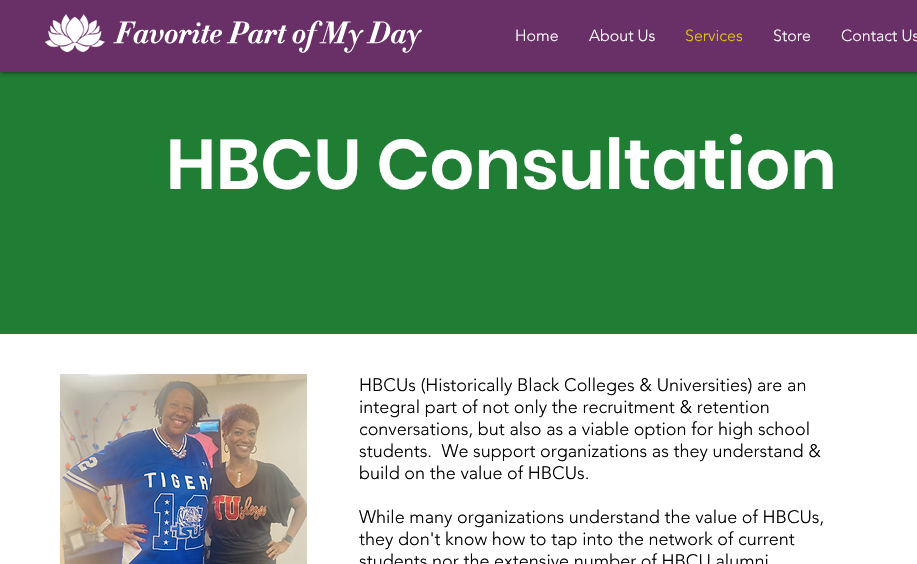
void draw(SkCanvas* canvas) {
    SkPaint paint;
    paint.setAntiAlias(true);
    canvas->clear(0xFFFFFFFF);
    paint.setColor(0xFF1F7D34);
    canvas->drawRect(SkRect::MakeXYWH(0, 72, 917, 262), paint);
    paint.setColor(0xB3000000);
    paint.setMaskFilter(SkMaskFilter::MakeBlur(kNormal_SkBlurStyle, 2.5f));
    canvas->drawRect(SkRect::MakeXYWH(0, 0, 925, 72), paint);
    paint.setMaskFilter(nullptr);
    paint.setColor(0xFF693067);
    canvas->drawRect(SkRect::MakeXYWH(0, 0, 917, 72), paint);
    canvas->drawImageRect(SkImages::DeferredFromEncodedData(SkData::MakeFromFileName("img1.png")), SkRect::MakeXYWH(45, 14, 377, 39), SkSamplingOptions());
    SkFont font1(fontMgr->matchFamilyStyle("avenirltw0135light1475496", SkFontStyle(300, SkFontStyle::kNormal_Width, SkFontStyle::kUpright_Slant)), 16);
    font1.setSubpixel(true);
    paint.setColor(0xFFFFFFFF);
    canvas->drawString("Home", 515, 41, font1, paint);
    canvas->drawString("About Us", 589, 41, font1, paint);
    paint.setColor(0xFFDEC912);
    canvas->drawString("Services", 685, 41, font1, paint);
    paint.setColor(0xFFFFFFFF);
    canvas->drawString("Store", 773, 41, font1, paint);
    canvas->drawString("Contact Us", 841, 41, font1, paint);
    SkFont font2(fontMgr->matchFamilyStyle("Poppins", SkFontStyle(600, SkFontStyle::kNormal_Width, SkFontStyle::kUpright_Slant)), 70);
    font2.setSubpixel(true);
    canvas->drawString("HBCU Consultation", 166, 189, font2, paint);
    canvas->drawImageRect(SkImages::DeferredFromEncodedData(SkData::MakeFromFileName("img2.png")), SkRect::MakeXYWH(60, 374, 247, 190), SkSamplingOptions());
    SkFont font3(fontMgr->matchFamilyStyle("avenirltw0135light1475496", SkFontStyle(300, SkFontStyle::kNormal_Width, SkFontStyle::kUpright_Slant)), 18);
    font3.setSubpixel(true);
    paint.setColor(0xFF000000);
    canvas->drawString("HBCUs (Historically Black Colleges & Universities) are an", 359, 391, font3, paint);
    canvas->drawString("integral part of not only the recruitment & retention", 359, 413, font3, paint);
    canvas->drawString("conversations, but also as a viable option for high school", 359, 435, font3, paint);
    canvas->drawString("students.  We support organizations as they understand &", 359, 457, font3, paint);
    canvas->drawString("build on the value of HBCUs.", 359, 479, font3, paint);
    canvas->drawString("While many organizations understand the value of HBCUs,", 359, 523, font3, paint);
    canvas->drawString("they don't know how to tap into the network of current", 359, 545, font3, paint);
    canvas->drawString("students nor the extensive number of HBCU alumni", 359, 567, font3, paint);
}
